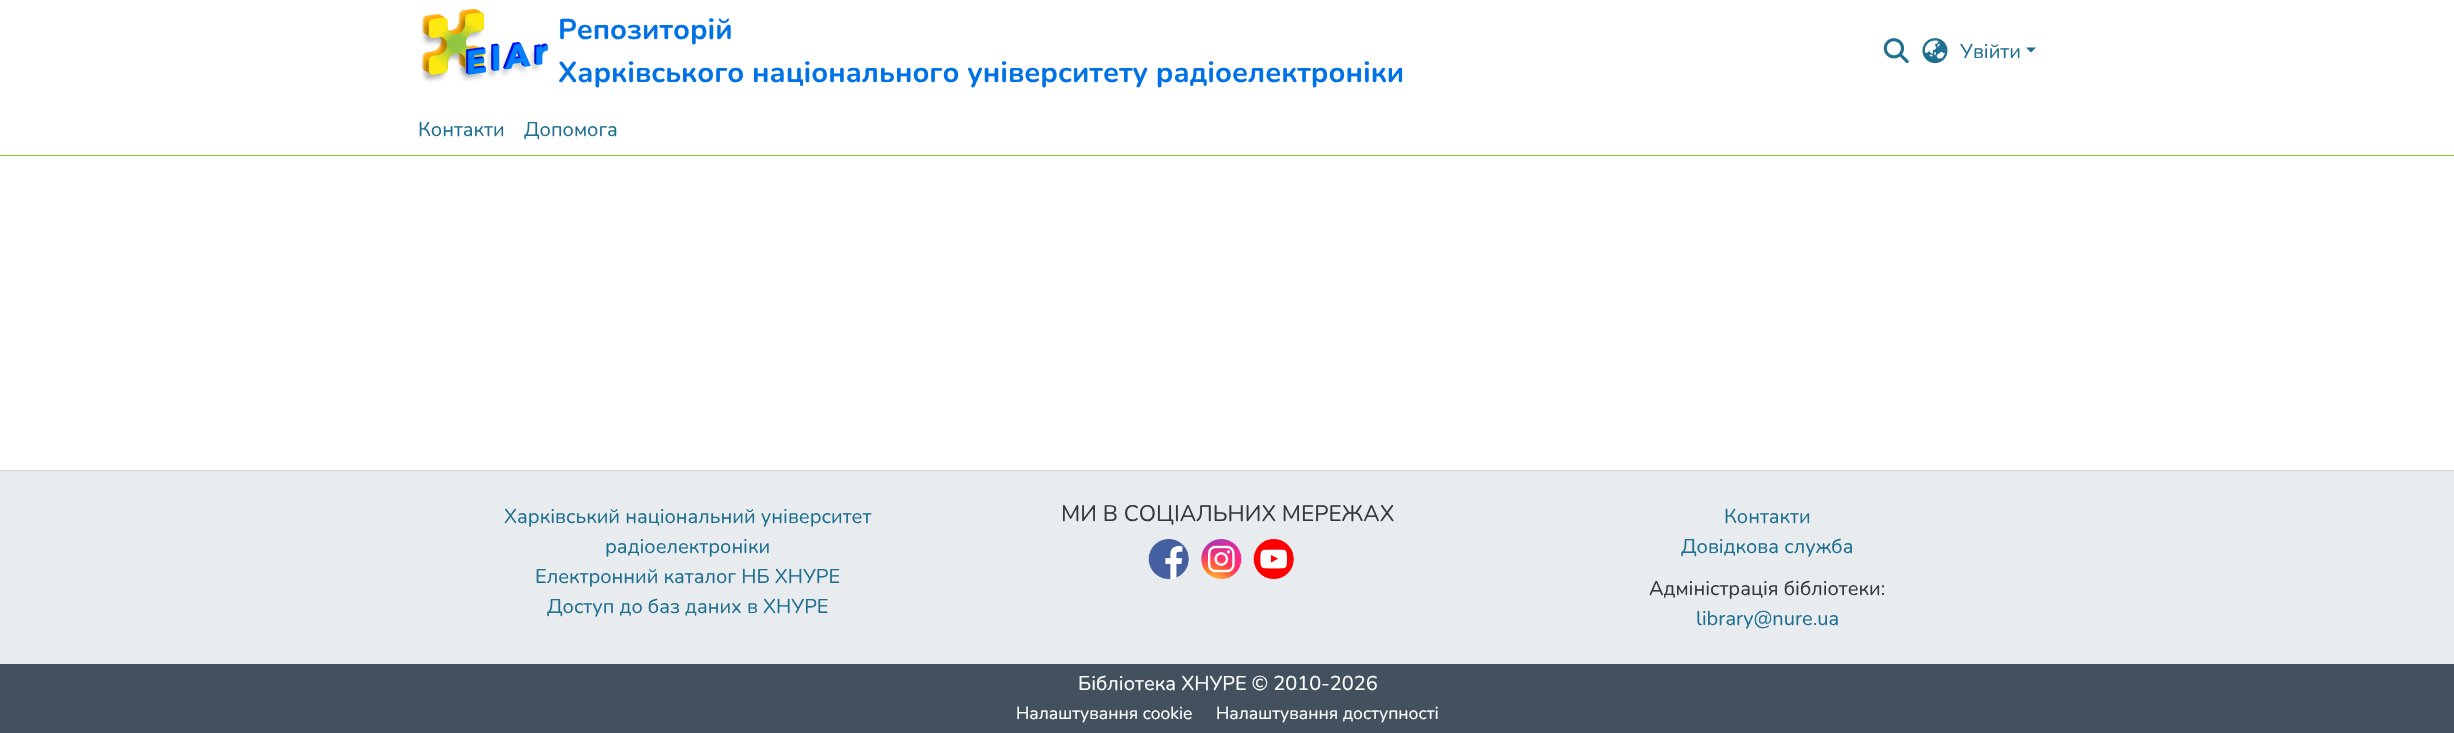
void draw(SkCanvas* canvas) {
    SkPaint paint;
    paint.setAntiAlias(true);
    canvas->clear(0xFFFFFFFF);
    paint.setColor(0xFF92C642);
    canvas->drawRect(SkRect::MakeXYWH(0, 155, 2454, 1), paint);
    canvas->drawImageRect(SkImages::DeferredFromEncodedData(SkData::MakeFromFileName("img1.png")), SkRect::MakeXYWH(421, 9, 127, 73), SkSamplingOptions());
    SkFont font1(fontMgr->matchFamilyStyle("Nunito", SkFontStyle::Bold()), 28.75f);
    font1.setSubpixel(true);
    paint.setColor(0xFF0172E6);
    canvas->drawString("Репозиторій", 558, 39, font1, paint);
    canvas->drawString("Харківського національного університету радіоелектроніки", 558, 82, font1, paint);
    canvas->drawImageRect(SkImages::DeferredFromEncodedData(SkData::MakeFromFileName("img2.png")), SkRect::MakeXYWH(1883, 38, 26, 26), SkSamplingOptions());
    canvas->drawImageRect(SkImages::DeferredFromEncodedData(SkData::MakeFromFileName("img3.png")), SkRect::MakeXYWH(1922, 38, 26, 26), SkSamplingOptions());
    SkFont font2(fontMgr->matchFamilyStyle("Nunito", SkFontStyle::Normal()), 20);
    font2.setSubpixel(true);
    paint.setColor(0xFF1E6F90);
    canvas->drawString("Увійти", 1960, 58, font2, paint);
    canvas->drawPath(SkPathBuilder().moveTo(2026, 47.5f).lineTo(2036, 47.5f).lineTo(2031, 52.5f).close().detach(), paint);
    canvas->drawString("Контакти", 418, 136, font2, paint);
    canvas->drawString("Допомога", 524, 136, font2, paint);
    paint.setColor(0xFF43515F);
    canvas->drawRect(SkRect::MakeXYWH(0, 664, 2454, 69), paint);
    paint.setColor(0xFFCED4DA);
    canvas->drawRect(SkRect::MakeXYWH(0, 470, 2454, 1), paint);
    paint.setColor(0xFFE9ECEF);
    canvas->drawRect(SkRect::MakeXYWH(0, 471, 2454, 193), paint);
    paint.setColor(0xFF1E6F90);
    canvas->drawString("Харківський національний університет", 504, 523, font2, paint);
    canvas->drawString("радіоелектроніки", 605, 553, font2, paint);
    canvas->drawString("Електронний каталог НБ ХНУРЕ", 535, 583, font2, paint);
    canvas->drawString("Доступ до баз даних в ХНУРЕ", 547, 613, font2, paint);
    SkFont font3(fontMgr->matchFamilyStyle("Nunito", SkFontStyle::Normal()), 22.5f);
    font3.setSubpixel(true);
    paint.setColor(0xFF343A40);
    canvas->drawString("МИ В СОЦІАЛЬНИХ МЕРЕЖАХ", 1061, 521, font3, paint);
    canvas->drawImageRect(SkImages::DeferredFromEncodedData(SkData::MakeFromFileName("img4.png")), SkRect::MakeXYWH(1148, 539, 41, 40), SkSamplingOptions());
    canvas->drawImageRect(SkImages::DeferredFromEncodedData(SkData::MakeFromFileName("img5.png")), SkRect::MakeXYWH(1201, 539, 41, 40), SkSamplingOptions());
    canvas->drawImageRect(SkImages::DeferredFromEncodedData(SkData::MakeFromFileName("img6.png")), SkRect::MakeXYWH(1253, 539, 41, 40), SkSamplingOptions());
    paint.setColor(0xFF1E6F90);
    canvas->drawString("Контакти", 1724, 523, font2, paint);
    canvas->drawString("Довідкова служба", 1681, 553, font2, paint);
    paint.setColor(0xFF343A40);
    canvas->drawString("Адміністрація бібліотеки:", 1649, 595, font2, paint);
    paint.setColor(0xFF1E6F90);
    canvas->drawString("library@nure.ua", 1696, 625, font2, paint);
    paint.setColor(0xFFFFFFFF);
    canvas->drawString("Бібліотека ХНУРЕ © 2010-2026", 1078, 690, font2, paint);
    SkFont font4(fontMgr->matchFamilyStyle("Nunito", SkFontStyle::Normal()), 17.5f);
    font4.setSubpixel(true);
    canvas->drawString("Налаштування cookie", 1016, 719, font4, paint);
    paint.setColor(0xFF495057);
    canvas->drawRect(SkRect::MakeXYWH(1204, 699, 1, 29), paint);
    paint.setColor(0xFFFFFFFF);
    canvas->drawString("Налаштування доступності", 1216, 719, font4, paint);
}
